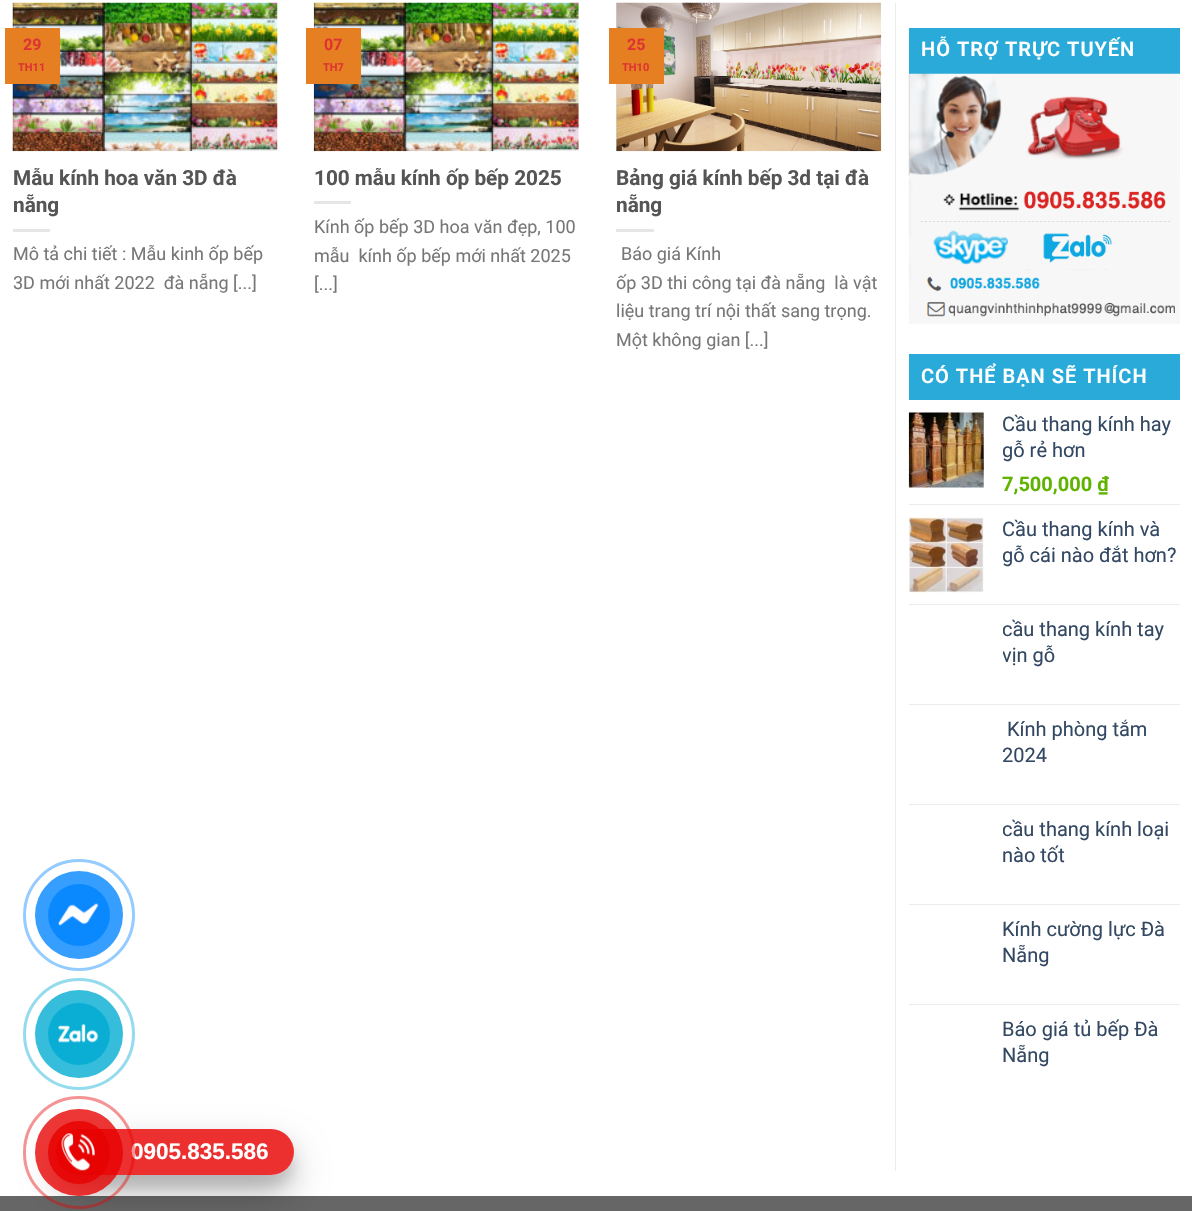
void draw(SkCanvas* canvas) {
    SkPaint paint;
    paint.setAntiAlias(true);
    auto spacedText = [&](const char* s, float x, float y, const SkFont& font, const SkPaint& ink, float letter, float word) {
        std::vector<SkGlyphID> glyphs(font.countText(s, strlen(s), SkTextEncoding::kUTF8));
        std::vector<float> xs(glyphs.size());
        font.textToGlyphs(s, strlen(s), SkTextEncoding::kUTF8, glyphs);
        font.getXPos(glyphs, xs, x);
        float extra = 0;
        for (size_t i = 0; i < glyphs.size(); i++) {
            xs[i] += extra;
            extra += letter + word * (glyphs[i] == font.unicharToGlyph(' '));
        }
        canvas->drawTextBlob(SkTextBlob::MakeFromPosHGlyphs(glyphs, xs, y, font), 0, 0, ink);
    };
    canvas->clear(0xFFFFFFFF);
    canvas->drawImageRect(SkImages::DeferredFromEncodedData(SkData::MakeFromFileName("img1.png")), SkRect::MakeXYWH(12, 2, 266, 150), SkSamplingOptions());
    paint.setColor(0xFFE67E22);
    canvas->drawRect(SkRect::MakeXYWH(5, 28, 55, 56), paint);
    SkFont font1(fontMgr->matchFamilyStyle("Roboto", SkFontStyle::Bold()), 16);
    font1.setSubpixel(true);
    paint.setColor(0xFFDD3333);
    canvas->drawString("29", 23, 50, font1, paint);
    SkFont font2(fontMgr->matchFamilyStyle("Roboto", SkFontStyle::Bold()), 11);
    font2.setSubpixel(true);
    canvas->drawString("TH11", 18, 71, font2, paint);
    SkFont font3(fontMgr->matchFamilyStyle("Roboto", SkFontStyle::Bold()), 20.75f);
    font3.setSubpixel(true);
    paint.setColor(0xFF555555);
    canvas->drawString("Mẫu kính hoa văn 3D đà", 13, 185, font3, paint);
    canvas->drawString("nẵng", 13, 212, font3, paint);
    paint.setColor(0xFFE6E6E6);
    canvas->drawRect(SkRect::MakeXYWH(13, 229, 37, 3), paint);
    SkFont font4(fontMgr->matchFamilyStyle("Roboto", SkFontStyle::Normal()), 18);
    font4.setSubpixel(true);
    paint.setColor(0xFF777777);
    canvas->drawString("Mô tả chi tiết : Mẫu kinh ốp bếp", 13, 260, font4, paint);
    canvas->drawString("3D mới nhất 2022  đà nẵng [...]", 13, 289, font4, paint);
    canvas->drawImageRect(SkImages::DeferredFromEncodedData(SkData::MakeFromFileName("img2.png")), SkRect::MakeXYWH(313, 2, 266, 150), SkSamplingOptions());
    paint.setColor(0xFFE67E22);
    canvas->drawRect(SkRect::MakeXYWH(306, 28, 55, 56), paint);
    paint.setColor(0xFFDD3333);
    canvas->drawString("07", 324, 50, font1, paint);
    canvas->drawString("TH7", 323, 71, font2, paint);
    paint.setColor(0xFF555555);
    canvas->drawString("100 mẫu kính ốp bếp 2025", 314, 185, font3, paint);
    paint.setColor(0xFFE6E6E6);
    canvas->drawRect(SkRect::MakeXYWH(314, 201, 37, 3), paint);
    paint.setColor(0xFF777777);
    canvas->drawString("Kính ốp bếp 3D hoa văn đẹp, 100", 314, 233, font4, paint);
    canvas->drawString("mẫu  kính ốp bếp mới nhất 2025", 314, 262, font4, paint);
    canvas->drawString("[...]", 314, 290, font4, paint);
    canvas->drawImageRect(SkImages::DeferredFromEncodedData(SkData::MakeFromFileName("img3.png")), SkRect::MakeXYWH(616, 2, 266, 150), SkSamplingOptions());
    paint.setColor(0xFFE67E22);
    canvas->drawRect(SkRect::MakeXYWH(609, 28, 55, 56), paint);
    paint.setColor(0xFFDD3333);
    canvas->drawString("25", 627, 50, font1, paint);
    canvas->drawString("TH10", 622, 71, font2, paint);
    paint.setColor(0xFF555555);
    canvas->drawString("Bảng giá kính bếp 3d tại đà", 616, 185, font3, paint);
    canvas->drawString("nẵng", 616, 212, font3, paint);
    paint.setColor(0xFFE6E6E6);
    canvas->drawRect(SkRect::MakeXYWH(616, 229, 38, 3), paint);
    paint.setColor(0xFF777777);
    canvas->drawString("Báo giá Kính", 621, 260, font4, paint);
    canvas->drawString("ốp 3D thi công tại đà nẵng  là vật", 616, 289, font4, paint);
    canvas->drawString("liệu trang trí nội thất sang trọng.", 616, 317, font4, paint);
    canvas->drawString("Một không gian [...]", 616, 346, font4, paint);
    paint.setColor(0xFFECECEC);
    canvas->drawRect(SkRect::MakeXYWH(895, 3, 1, 1168), paint);
    paint.setColor(0xFF29AAD8);
    canvas->drawRect(SkRect::MakeXYWH(909, 28, 271, 46), paint);
    SkFont font5(fontMgr->matchFamilyStyle("Roboto", SkFontStyle(600, SkFontStyle::kNormal_Width, SkFontStyle::kUpright_Slant)), 20);
    font5.setSubpixel(true);
    paint.setColor(0xFFFFFFFF);
    spacedText("HỖ TRỢ TRỰC TUYẾN", 921, 56, font5, paint, 1, 0);
    canvas->drawImageRect(SkImages::DeferredFromEncodedData(SkData::MakeFromFileName("img4.png")), SkRect::MakeXYWH(908, 73, 272, 251), SkSamplingOptions());
    paint.setColor(0xFF29AAD8);
    canvas->drawRect(SkRect::MakeXYWH(909, 354, 271, 46), paint);
    paint.setColor(0xFFFFFFFF);
    spacedText("CÓ THỂ BẠN SẼ THÍCH", 921, 383, font5, paint, 1, 0);
    canvas->drawImageRect(SkImages::DeferredFromEncodedData(SkData::MakeFromFileName("img5.png")), SkRect::MakeXYWH(908, 412, 76, 76), SkSamplingOptions());
    SkFont font6(fontMgr->matchFamilyStyle("Roboto", SkFontStyle::Normal()), 20);
    font6.setSubpixel(true);
    paint.setColor(0xFF334862);
    canvas->drawString("Cầu thang kính hay", 1002, 431, font6, paint);
    canvas->save();
    canvas->clipRect(SkRect::MakeXYWH(1003, 413, 177, 51));
    canvas->drawString("gỗ rẻ hơn", 1002, 457, font6, paint);
    canvas->restore();
    SkFont font7(fontMgr->matchFamilyStyle("Roboto", SkFontStyle::Bold()), 20);
    font7.setSubpixel(true);
    paint.setColor(0xFF60B301);
    canvas->drawString("7,500,000 ₫", 1002, 491, font7, paint);
    paint.setColor(0xFFECECEC);
    canvas->drawRect(SkRect::MakeXYWH(909, 504, 271, 1), paint);
    canvas->drawImageRect(SkImages::DeferredFromEncodedData(SkData::MakeFromFileName("img6.png")), SkRect::MakeXYWH(909, 517, 75, 76), SkSamplingOptions());
    paint.setColor(0xFF334862);
    canvas->drawString("Cầu thang kính và", 1002, 536, font6, paint);
    canvas->save();
    canvas->clipRect(SkRect::MakeXYWH(1003, 518, 177, 51));
    canvas->drawString("gỗ cái nào đắt hơn?", 1002, 562, font6, paint);
    canvas->restore();
    paint.setColor(0xFFECECEC);
    canvas->drawRect(SkRect::MakeXYWH(909, 604, 271, 1), paint);
    canvas->save();
    canvas->clipRect(SkRect::MakeXYWH(1003, 618, 177, 51));
    paint.setColor(0xFF334862);
    canvas->drawString("cầu thang kính tay", 1002, 636, font6, paint);
    canvas->drawString("vịn gỗ", 1002, 662, font6, paint);
    canvas->restore();
    paint.setColor(0xFFECECEC);
    canvas->drawRect(SkRect::MakeXYWH(909, 704, 271, 1), paint);
    paint.setColor(0xFF334862);
    canvas->drawString("Kính phòng tắm", 1007, 736, font6, paint);
    canvas->drawString("2024", 1002, 762, font6, paint);
    paint.setColor(0xFFECECEC);
    canvas->drawRect(SkRect::MakeXYWH(909, 804, 271, 1), paint);
    canvas->save();
    canvas->clipRect(SkRect::MakeXYWH(1003, 818, 177, 51));
    paint.setColor(0xFF334862);
    canvas->drawString("cầu thang kính loại", 1002, 836, font6, paint);
    canvas->restore();
    canvas->drawString("nào tốt", 1002, 862, font6, paint);
    paint.setColor(0xFFECECEC);
    canvas->drawRect(SkRect::MakeXYWH(909, 904, 271, 1), paint);
    paint.setColor(0xFF334862);
    canvas->drawString("Kính cường lực Đà", 1002, 936, font6, paint);
    canvas->drawString("Nẵng", 1002, 962, font6, paint);
    paint.setColor(0xFFECECEC);
    canvas->drawRect(SkRect::MakeXYWH(909, 1004, 271, 1), paint);
    paint.setColor(0xFF334862);
    canvas->drawString("Báo giá tủ bếp Đà", 1002, 1036, font6, paint);
    canvas->drawString("Nẵng", 1002, 1062, font6, paint);
    paint.setColor(0xFF666666);
    canvas->drawRect(SkRect::MakeXYWH(0, 1196, 1192, 15), paint);
    paint.setStyle(SkPaint::kStroke_Style);
    paint.setStrokeWidth(3);
    paint.setColor(0xFF94CCFF);
    canvas->drawCircle(79, 915, 54.5f, paint);
    paint.setStyle(SkPaint::kFill_Style);
    paint.setColor(0xFF369EFF);
    canvas->drawCircle(79, 915, 44, paint);
    paint.setColor(0xFF0A89FF);
    canvas->drawCircle(79, 915, 31, paint);
    canvas->drawImageRect(SkImages::DeferredFromEncodedData(SkData::MakeFromFileName("img7.png")), SkRect::MakeXYWH(58, 903, 41, 23), SkSamplingOptions());
    paint.setStyle(SkPaint::kStroke_Style);
    paint.setColor(0xFF94DCED);
    canvas->drawCircle(79, 1034, 54.5f, paint);
    paint.setStyle(SkPaint::kFill_Style);
    paint.setColor(0xFF36BDDC);
    canvas->drawCircle(79, 1034, 44, paint);
    paint.setColor(0xFF0AAED5);
    canvas->drawCircle(79, 1034, 31, paint);
    canvas->drawImageRect(SkImages::DeferredFromEncodedData(SkData::MakeFromFileName("img8.png")), SkRect::MakeXYWH(58, 1024, 41, 19), SkSamplingOptions());
    canvas->save();
    canvas->clipPath(SkPathBuilder(SkPathFillType::kEvenOdd).moveTo(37, 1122).lineTo(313, 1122).lineTo(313, 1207).lineTo(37, 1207).close().moveTo(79, 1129).lineTo(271, 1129).cubicTo(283.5f, 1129, 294, 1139.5f, 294, 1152).cubicTo(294, 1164.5f, 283.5f, 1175, 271, 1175).lineTo(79, 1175).cubicTo(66.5f, 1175, 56, 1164.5f, 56, 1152).cubicTo(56, 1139.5f, 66.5f, 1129, 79, 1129).close().detach(), true);
    paint.setColor(0x1A000000);
    paint.setMaskFilter(SkMaskFilter::MakeBlur(kNormal_SkBlurStyle, 6));
    canvas->drawRoundRect(SkRect::MakeXYWH(56, 1141, 238, 47), 23.5f, 23.5f, paint);
    paint.setMaskFilter(nullptr);
    canvas->restore();
    canvas->save();
    canvas->clipPath(SkPathBuilder(SkPathFillType::kEvenOdd).moveTo(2, 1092).lineTo(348, 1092).lineTo(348, 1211).lineTo(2, 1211).close().moveTo(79, 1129).lineTo(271, 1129).cubicTo(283.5f, 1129, 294, 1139.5f, 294, 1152).cubicTo(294, 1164.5f, 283.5f, 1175, 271, 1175).lineTo(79, 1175).cubicTo(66.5f, 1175, 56, 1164.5f, 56, 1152).cubicTo(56, 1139.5f, 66.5f, 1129, 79, 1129).close().detach(), true);
    paint.setColor(0x40000000);
    paint.setMaskFilter(SkMaskFilter::MakeBlur(kNormal_SkBlurStyle, 17.5f));
    canvas->drawRoundRect(SkRect::MakeXYWH(56, 1146, 238, 47), 23.5f, 23.5f, paint);
    paint.setMaskFilter(nullptr);
    canvas->restore();
    paint.setColor(0xCFE80000);
    canvas->drawRoundRect(SkRect::MakeXYWH(56, 1129, 238, 46), 23, 23, paint);
    SkFont font8(fontMgr->matchFamilyStyle("Liberation Sans", SkFontStyle::Bold()), 22.5f);
    font8.setSubpixel(true);
    paint.setColor(0xFFFFFFFF);
    canvas->drawString("0905.835.586", 131, 1159, font8, paint);
    paint.setStyle(SkPaint::kStroke_Style);
    paint.setColor(0x6BE80000);
    canvas->drawRoundRect(SkRect::MakeXYWH(24.5f, 1097.5f, 109, 110), 54.5f, 54.5f, paint);
    paint.setStyle(SkPaint::kFill_Style);
    paint.setColor(0xC9E80000);
    canvas->drawRoundRect(SkRect::MakeXYWH(35, 1109, 88, 87), 43.5f, 43.5f, paint);
    paint.setColor(0xCFE80000);
    canvas->drawRoundRect(SkRect::MakeXYWH(48, 1121, 62, 63), 31, 31, paint);
    canvas->drawImageRect(SkImages::DeferredFromEncodedData(SkData::MakeFromFileName("img9.png")), SkRect::MakeXYWH(61, 1133, 34, 38), SkSamplingOptions());
}
